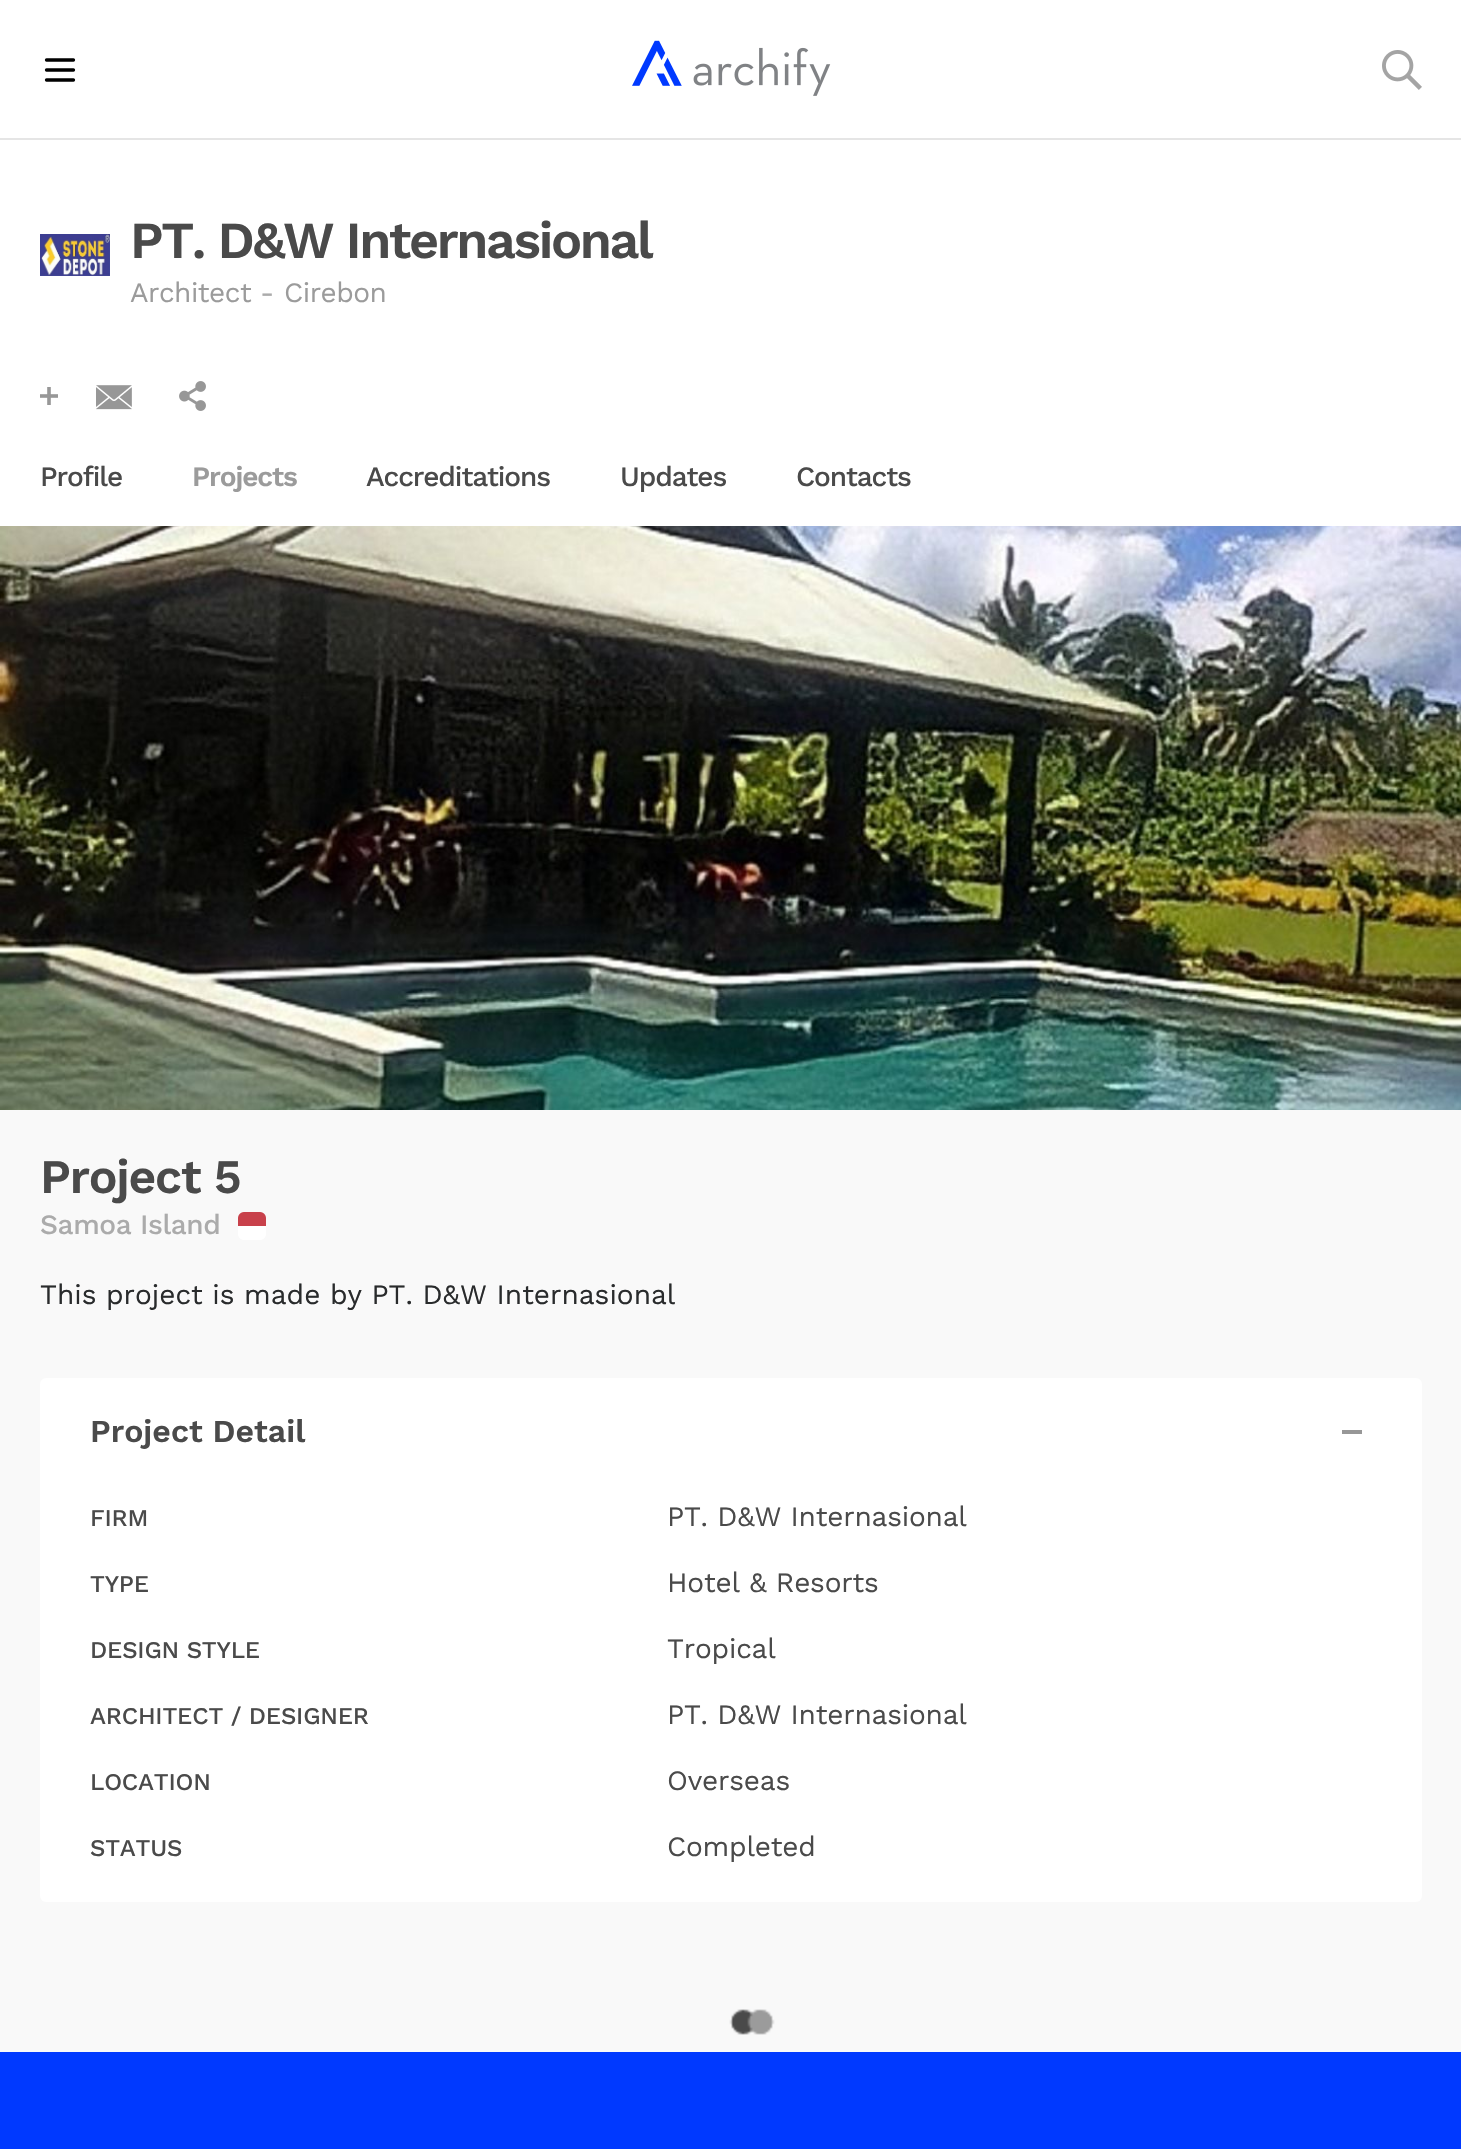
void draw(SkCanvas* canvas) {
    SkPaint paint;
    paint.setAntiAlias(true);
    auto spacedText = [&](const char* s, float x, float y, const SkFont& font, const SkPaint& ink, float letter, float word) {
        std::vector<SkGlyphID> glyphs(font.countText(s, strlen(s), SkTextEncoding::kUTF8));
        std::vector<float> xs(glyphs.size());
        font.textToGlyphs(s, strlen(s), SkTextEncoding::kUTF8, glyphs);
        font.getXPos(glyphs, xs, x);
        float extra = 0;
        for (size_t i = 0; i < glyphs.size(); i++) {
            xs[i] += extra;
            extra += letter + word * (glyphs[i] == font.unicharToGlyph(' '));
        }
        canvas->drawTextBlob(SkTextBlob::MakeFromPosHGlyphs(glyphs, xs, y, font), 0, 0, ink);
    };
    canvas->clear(0xFFF9F9F9);
    paint.setColor(0xFFFFFFFF);
    canvas->drawRect(SkRect::MakeXYWH(0, 0, 1461, 138), paint);
    paint.setColor(0xFFE5E5E5);
    canvas->drawRect(SkRect::MakeXYWH(0, 138, 1461, 2), paint);
    paint.setStyle(SkPaint::kStroke_Style);
    paint.setStrokeWidth(3.3f);
    paint.setStrokeCap(SkPaint::kRound_Cap);
    paint.setColor(0xFF000000);
    canvas->drawPath(SkPathBuilder().moveTo(46.5f, 80).lineTo(73.5f, 80).moveTo(46.5f, 70).lineTo(73.5f, 70).moveTo(46.5f, 60).lineTo(73.5f, 60).detach(), paint);
    canvas->drawImageRect(SkImages::DeferredFromEncodedData(SkData::MakeFromFileName("img1.png")), SkRect::MakeXYWH(632, 40, 199, 56), SkSamplingOptions());
    canvas->drawImageRect(SkImages::DeferredFromEncodedData(SkData::MakeFromFileName("img2.png")), SkRect::MakeXYWH(1382, 50, 40, 40), SkSamplingOptions());
    paint.setStyle(SkPaint::kFill_Style);
    paint.setColor(0xFFFFFFFF);
    canvas->drawRect(SkRect::MakeXYWH(0, 140, 1461, 386), paint);
    canvas->drawImageRect(SkImages::DeferredFromEncodedData(SkData::MakeFromFileName("img3.png")), SkRect::MakeXYWH(40, 234, 70, 42), SkSamplingOptions());
    SkFont font1(fontMgr->matchFamilyStyle("Work Sans", SkFontStyle(600, SkFontStyle::kNormal_Width, SkFontStyle::kUpright_Slant)), 52);
    font1.setSubpixel(true);
    paint.setColor(0xFF4A4A4A);
    spacedText("PT. D&W Internasional", 130, 258, font1, paint, -2.4f, 0);
    SkFont font2(fontMgr->matchFamilyStyle("Work Sans", SkFontStyle::Normal()), 28);
    font2.setSubpixel(true);
    paint.setColor(0xFF9B9B9B);
    spacedText("Architect", 130, 302, font2, paint, -0.5f, 0);
    paint.setColor(0xFFABABAB);
    canvas->drawString("-", 260, 302, font2, paint);
    paint.setColor(0xFF9B9B9B);
    spacedText("Cirebon", 284, 302, font2, paint, -0.5f, 0);
    canvas->drawImageRect(SkImages::DeferredFromEncodedData(SkData::MakeFromFileName("img4.png")), SkRect::MakeXYWH(40, 387, 18, 18), SkSamplingOptions());
    canvas->drawImageRect(SkImages::DeferredFromEncodedData(SkData::MakeFromFileName("img5.png")), SkRect::MakeXYWH(96, 385, 36, 25), SkSamplingOptions());
    canvas->drawImageRect(SkImages::DeferredFromEncodedData(SkData::MakeFromFileName("img6.png")), SkRect::MakeXYWH(179, 381, 27, 30), SkSamplingOptions());
    SkFont font3(fontMgr->matchFamilyStyle("Work Sans", SkFontStyle(500, SkFontStyle::kNormal_Width, SkFontStyle::kUpright_Slant)), 28);
    font3.setSubpixel(true);
    paint.setColor(0xFF4A4A4A);
    spacedText("Profile", 40, 486, font3, paint, -1.1f, 0);
    SkFont font4(fontMgr->matchFamilyStyle("Work Sans", SkFontStyle(600, SkFontStyle::kNormal_Width, SkFontStyle::kUpright_Slant)), 28);
    font4.setSubpixel(true);
    paint.setColor(0xFF9B9B9B);
    spacedText("Projects", 192, 486, font4, paint, -1.1f, 0);
    paint.setColor(0xFF4A4A4A);
    spacedText("Accreditations", 366, 486, font3, paint, -1.1f, 0);
    spacedText("Updates", 620, 486, font3, paint, -1.1f, 0);
    spacedText("Contacts", 796, 486, font3, paint, -1.1f, 0);
    canvas->drawImageRect(SkImages::DeferredFromEncodedData(SkData::MakeFromFileName("img7.png")), SkRect::MakeXYWH(0, 526, 1461, 584), SkSamplingOptions());
    SkFont font5(fontMgr->matchFamilyStyle("Work Sans", SkFontStyle(600, SkFontStyle::kNormal_Width, SkFontStyle::kUpright_Slant)), 48);
    font5.setSubpixel(true);
    spacedText("Project 5", 40, 1193, font5, paint, -1.25f, 0);
    paint.setColor(0xFFABABAB);
    spacedText("Samoa Island", 40, 1234, font3, paint, -0.4f, 0);
    canvas->drawImageRect(SkImages::DeferredFromEncodedData(SkData::MakeFromFileName("img8.png")), SkRect::MakeXYWH(238, 1212, 28, 28), SkSamplingOptions());
    paint.setColor(0xFF292B2C);
    canvas->drawString("This project is made by PT. D&W Internasional", 40, 1304, font2, paint);
    paint.setColor(0xFFFFFFFF);
    canvas->drawRoundRect(SkRect::MakeXYWH(40, 1378, 1382, 524), 6, 6, paint);
    SkFont font6(fontMgr->matchFamilyStyle("Work Sans", SkFontStyle(600, SkFontStyle::kNormal_Width, SkFontStyle::kUpright_Slant)), 32);
    font6.setSubpixel(true);
    paint.setColor(0xFF4A4A4A);
    canvas->drawString("Project Detail", 90, 1442, font6, paint);
    paint.setStyle(SkPaint::kStroke_Style);
    paint.setStrokeWidth(2);
    paint.setStrokeCap(SkPaint::kButt_Cap);
    paint.setColor(0xFF979797);
    canvas->drawPath(SkPathBuilder().moveTo(1343, 1431).lineTo(1361, 1431).lineTo(1361, 1433).lineTo(1343, 1433).close().detach(), paint);
    SkFont font7(fontMgr->matchFamilyStyle("Work Sans", SkFontStyle(500, SkFontStyle::kNormal_Width, SkFontStyle::kUpright_Slant)), 24);
    font7.setSubpixel(true);
    paint.setStyle(SkPaint::kFill_Style);
    paint.setColor(0xFF4A4A4A);
    spacedText("FIRM", 90, 1526, font7, paint, -0.2f, 0);
    spacedText("PT. D&W Internasional", 667, 1526, font2, paint, -0.2f, 0);
    spacedText("TYPE", 90, 1592, font7, paint, -0.2f, 0);
    spacedText("Hotel & Resorts", 667, 1592, font2, paint, -0.2f, 0);
    spacedText("DESIGN STYLE", 90, 1658, font7, paint, -0.2f, 0);
    spacedText("Tropical", 667, 1658, font2, paint, -0.2f, 0);
    spacedText("ARCHITECT / DESIGNER", 90, 1724, font7, paint, -0.2f, 0);
    spacedText("PT. D&W Internasional", 667, 1724, font2, paint, -0.2f, 0);
    spacedText("LOCATION", 90, 1790, font7, paint, -0.2f, 0);
    spacedText("Overseas", 667, 1790, font2, paint, -0.2f, 0);
    spacedText("STATUS", 90, 1856, font7, paint, -0.2f, 0);
    spacedText("Completed", 667, 1856, font2, paint, -0.2f, 0);
    canvas->drawImageRect(SkImages::DeferredFromEncodedData(SkData::MakeFromFileName("img9.png")), SkRect::MakeXYWH(729, 2009, 46, 26), SkSamplingOptions());
    paint.setColor(0xFF0039FF);
    canvas->drawRect(SkRect::MakeXYWH(0, 2052, 1461, 97), paint);
}
